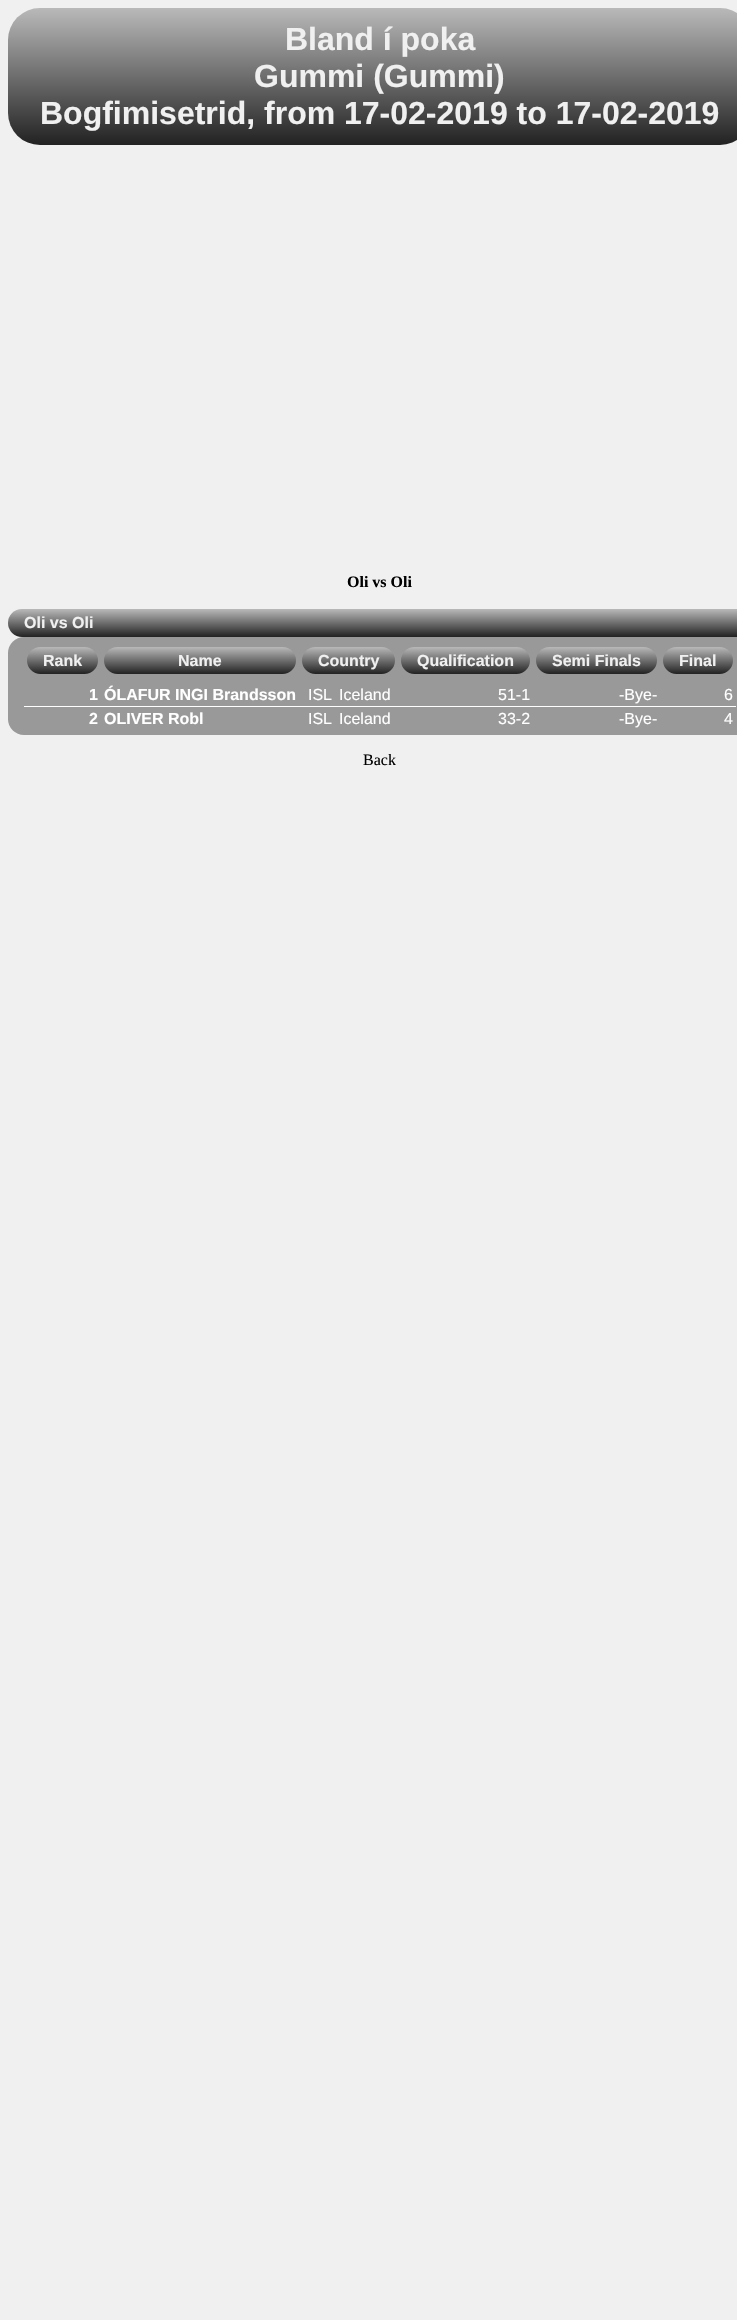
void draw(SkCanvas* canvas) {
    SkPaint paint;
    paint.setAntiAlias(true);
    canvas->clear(0xFFF0F0F0);
    {
        const SkColor colors[] = {0xFFB9B9B9, 0xFF222222};
        const float stops[] = {0, 1};
        const SkPoint ends[] = {{8, 8}, {8, 145}};
        paint.setShader(SkGradientShader::MakeLinear(ends, colors, stops, 2, SkTileMode::kClamp));
        paint.setAlpha(255);
    }
    canvas->drawRoundRect(SkRect::MakeXYWH(8, 8, 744, 137), 32, 32, paint);
    SkFont font1(fontMgr->matchFamilyStyle("Liberation Sans", SkFontStyle::Bold()), 32);
    font1.setSubpixel(true);
    paint.setShader(nullptr);
    paint.setColor(0xFFF0F0F0);
    canvas->drawString("Bland í poka", 285, 50, font1, paint);
    canvas->drawString("Gummi (Gummi)", 254, 87, font1, paint);
    canvas->drawString("Bogfimisetrid, from 17-02-2019 to 17-02-2019", 40, 124, font1, paint);
    SkFont font2(fontMgr->matchFamilyStyle("Liberation Serif", SkFontStyle::Bold()), 16);
    font2.setSubpixel(true);
    paint.setColor(0xFF000000);
    canvas->drawString("Oli vs Oli", 347, 587, font2, paint);
    {
        const SkColor colors[] = {0xFFB9B9B9, 0xFF222222};
        const float stops[] = {0, 1};
        const SkPoint ends[] = {{8, 609}, {8, 637}};
        paint.setShader(SkGradientShader::MakeLinear(ends, colors, stops, 2, SkTileMode::kClamp));
        paint.setAlpha(255);
    }
    canvas->drawRoundRect(SkRect::MakeXYWH(8, 609, 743, 28), 14, 14, paint);
    SkFont font3(fontMgr->matchFamilyStyle("Liberation Sans", SkFontStyle::Bold()), 16);
    font3.setSubpixel(true);
    paint.setShader(nullptr);
    paint.setColor(0xFFF0F0F0);
    canvas->drawString("Oli vs Oli", 24, 628, font3, paint);
    paint.setColor(0xFF999999);
    canvas->drawRoundRect(SkRect::MakeXYWH(8, 637, 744, 98), 16, 16, paint);
    {
        const SkColor colors[] = {0xFFB9B9B9, 0xFF222222};
        const float stops[] = {0, 1};
        const SkPoint ends[] = {{27, 647}, {27, 674}};
        paint.setShader(SkGradientShader::MakeLinear(ends, colors, stops, 2, SkTileMode::kClamp));
        paint.setAlpha(255);
    }
    canvas->drawRoundRect(SkRect::MakeXYWH(27, 647, 71, 27), 13.5f, 13.5f, paint);
    paint.setShader(nullptr);
    paint.setColor(0xFFF0F0F0);
    canvas->drawString("Rank", 43, 666, font3, paint);
    {
        const SkColor colors[] = {0xFFB9B9B9, 0xFF222222};
        const float stops[] = {0, 1};
        const SkPoint ends[] = {{104, 647}, {104, 674}};
        paint.setShader(SkGradientShader::MakeLinear(ends, colors, stops, 2, SkTileMode::kClamp));
        paint.setAlpha(255);
    }
    canvas->drawRoundRect(SkRect::MakeXYWH(104, 647, 192, 27), 13.5f, 13.5f, paint);
    paint.setShader(nullptr);
    paint.setColor(0xFFF0F0F0);
    canvas->drawString("Name", 178, 666, font3, paint);
    {
        const SkColor colors[] = {0xFFB9B9B9, 0xFF222222};
        const float stops[] = {0, 1};
        const SkPoint ends[] = {{302, 647}, {302, 674}};
        paint.setShader(SkGradientShader::MakeLinear(ends, colors, stops, 2, SkTileMode::kClamp));
        paint.setAlpha(255);
    }
    canvas->drawRoundRect(SkRect::MakeXYWH(302, 647, 93, 27), 13.5f, 13.5f, paint);
    paint.setShader(nullptr);
    paint.setColor(0xFFF0F0F0);
    canvas->drawString("Country", 318, 666, font3, paint);
    {
        const SkColor colors[] = {0xFFB9B9B9, 0xFF222222};
        const float stops[] = {0, 1};
        const SkPoint ends[] = {{401, 647}, {401, 674}};
        paint.setShader(SkGradientShader::MakeLinear(ends, colors, stops, 2, SkTileMode::kClamp));
        paint.setAlpha(255);
    }
    canvas->drawRoundRect(SkRect::MakeXYWH(401, 647, 129, 27), 13.5f, 13.5f, paint);
    paint.setShader(nullptr);
    paint.setColor(0xFFF0F0F0);
    canvas->drawString("Qualification", 417, 666, font3, paint);
    {
        const SkColor colors[] = {0xFFB9B9B9, 0xFF222222};
        const float stops[] = {0, 1};
        const SkPoint ends[] = {{536, 647}, {536, 674}};
        paint.setShader(SkGradientShader::MakeLinear(ends, colors, stops, 2, SkTileMode::kClamp));
        paint.setAlpha(255);
    }
    canvas->drawRoundRect(SkRect::MakeXYWH(536, 647, 121, 27), 13.5f, 13.5f, paint);
    paint.setShader(nullptr);
    paint.setColor(0xFFF0F0F0);
    canvas->drawString("Semi Finals", 552, 666, font3, paint);
    {
        const SkColor colors[] = {0xFFB9B9B9, 0xFF222222};
        const float stops[] = {0, 1};
        const SkPoint ends[] = {{663, 647}, {663, 674}};
        paint.setShader(SkGradientShader::MakeLinear(ends, colors, stops, 2, SkTileMode::kClamp));
        paint.setAlpha(255);
    }
    canvas->drawRoundRect(SkRect::MakeXYWH(663, 647, 70, 27), 13.5f, 13.5f, paint);
    paint.setShader(nullptr);
    paint.setColor(0xFFF0F0F0);
    canvas->drawString("Final", 679, 666, font3, paint);
    paint.setColor(0xFFFFFFFF);
    canvas->drawString("1", 89, 700, font3, paint);
    canvas->drawString("ÓLAFUR INGI Brandsson", 104, 700, font3, paint);
    SkFont font4(fontMgr->matchFamilyStyle("Liberation Sans", SkFontStyle::Normal()), 16);
    font4.setSubpixel(true);
    canvas->drawString("ISL", 308, 700, font4, paint);
    canvas->drawString("Iceland", 339, 700, font4, paint);
    canvas->drawString("51-1", 498, 700, font4, paint);
    canvas->drawString("-Bye-", 619, 700, font4, paint);
    canvas->drawString("6", 724, 700, font4, paint);
    canvas->drawString("2", 89, 724, font3, paint);
    canvas->drawString("OLIVER Robl", 104, 724, font3, paint);
    canvas->drawString("ISL", 308, 724, font4, paint);
    canvas->drawString("Iceland", 339, 724, font4, paint);
    canvas->drawString("33-2", 498, 724, font4, paint);
    canvas->drawString("-Bye-", 619, 724, font4, paint);
    canvas->drawRect(SkRect::MakeXYWH(24, 706, 712, 1), paint);
    canvas->drawString("4", 724, 724, font4, paint);
    SkFont font5(fontMgr->matchFamilyStyle("Liberation Serif", SkFontStyle::Normal()), 16);
    font5.setSubpixel(true);
    paint.setColor(0xFF000000);
    canvas->drawString("Back", 363, 765, font5, paint);
}
